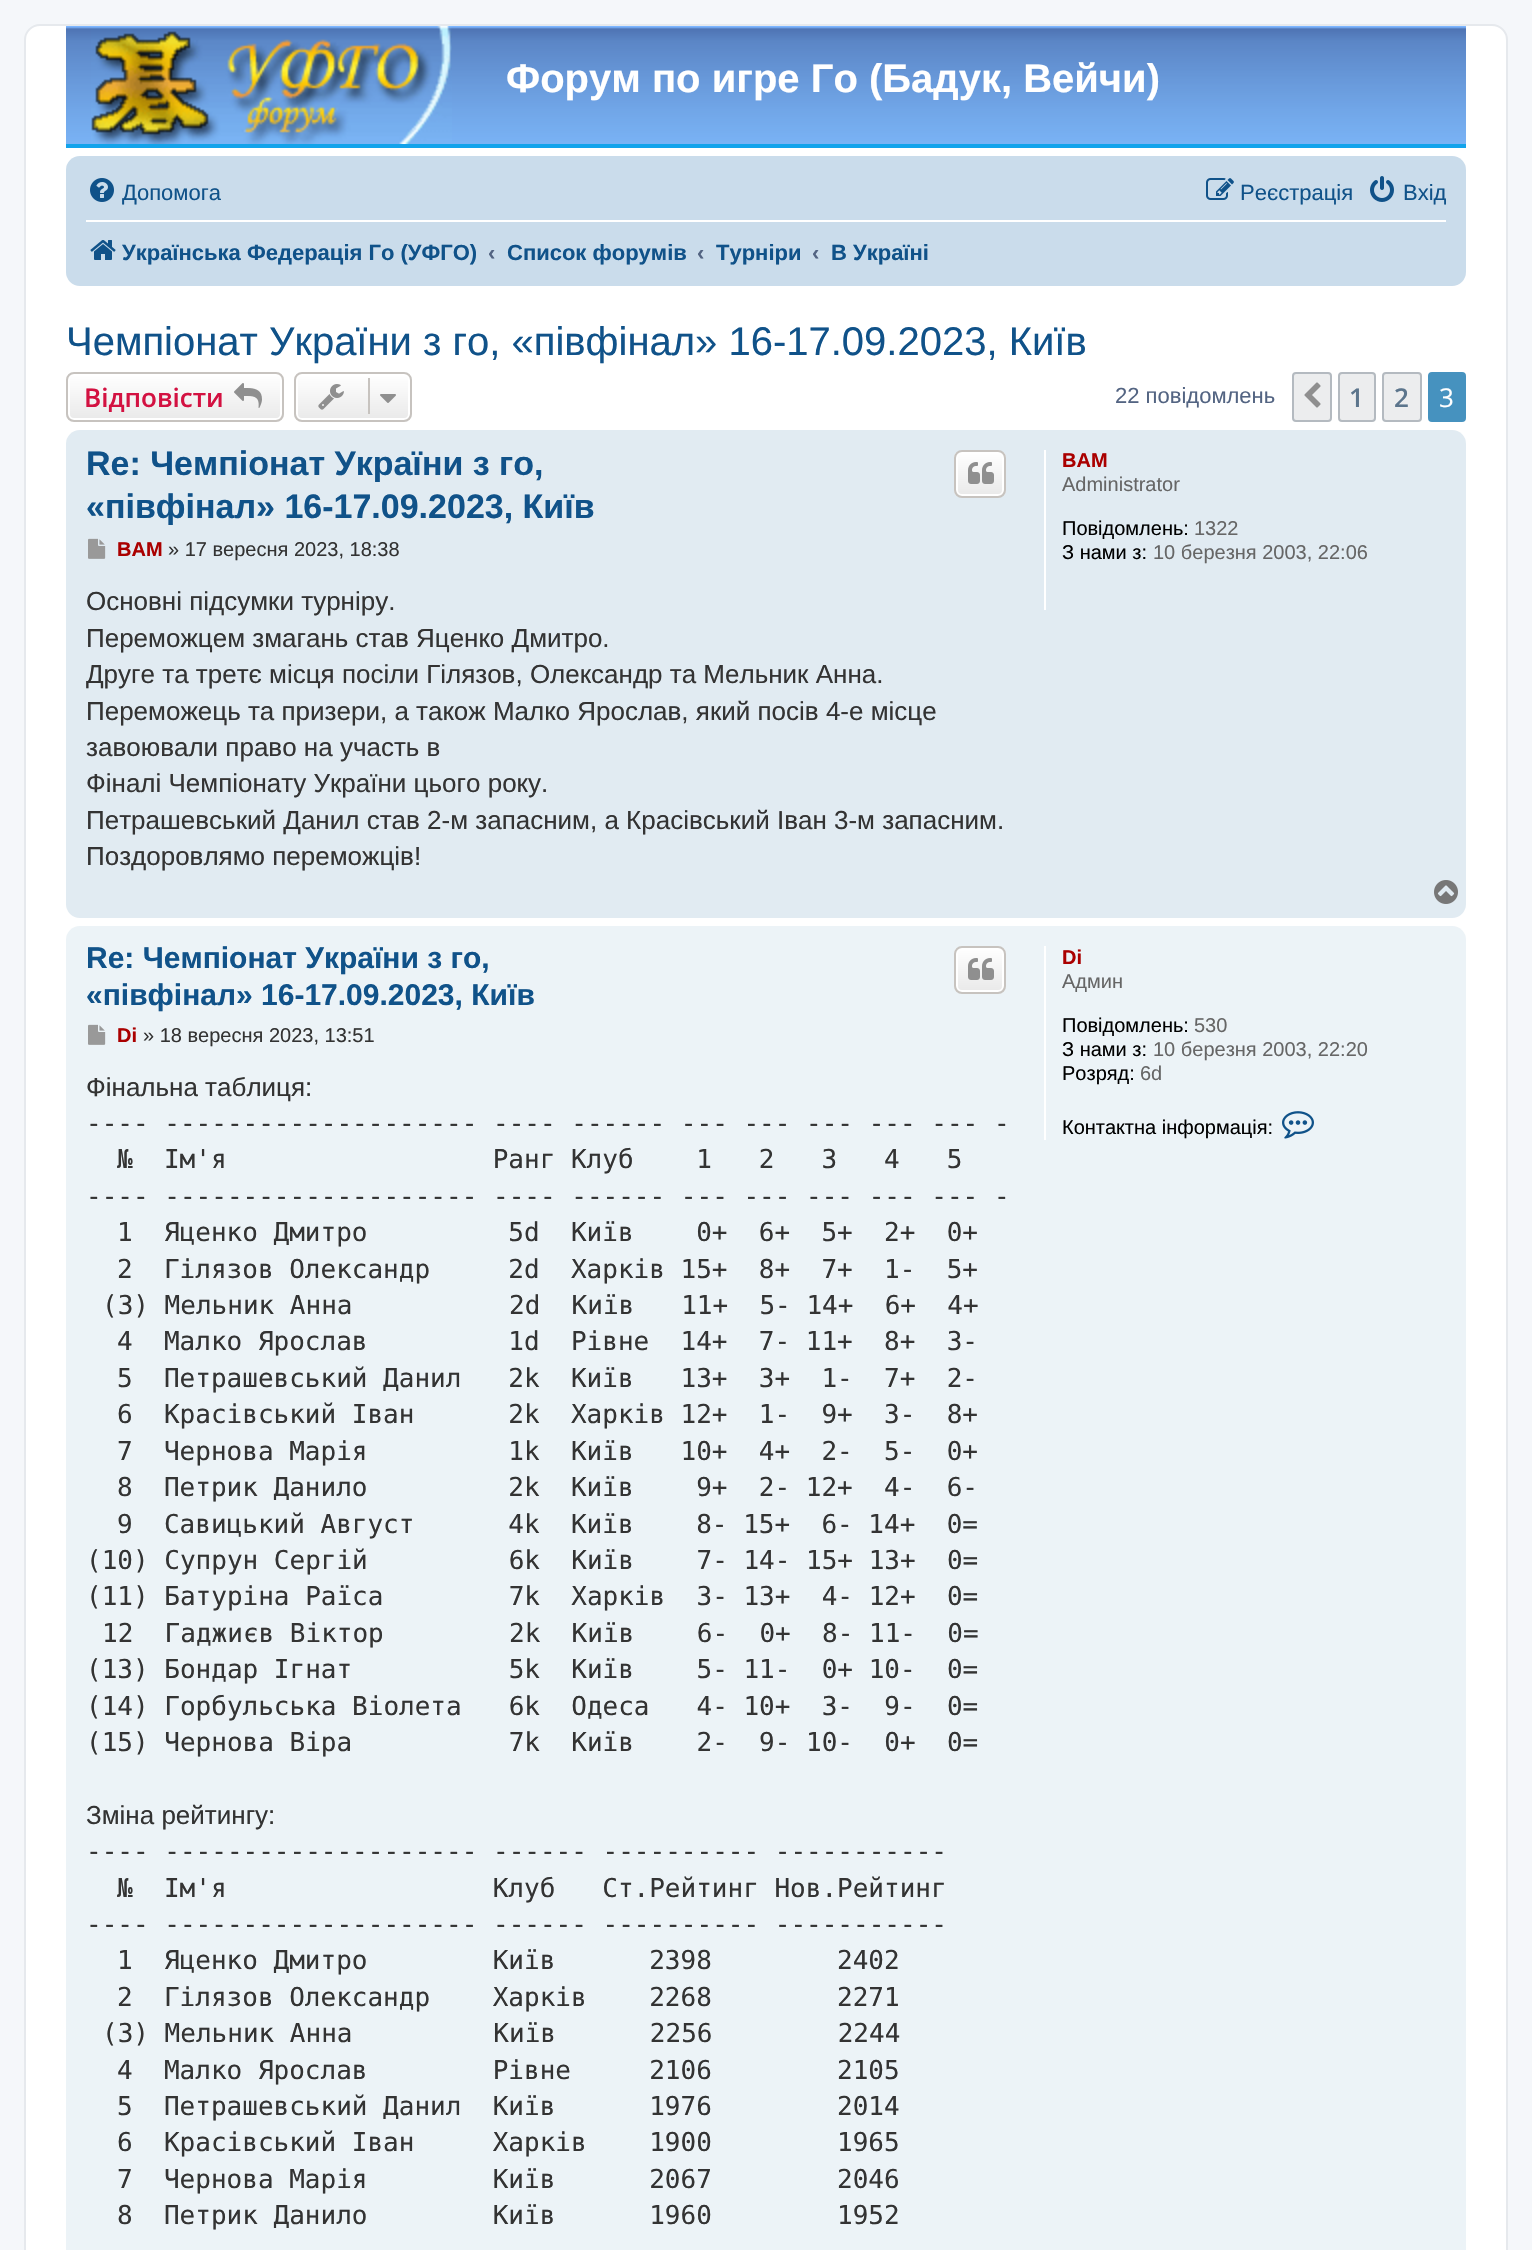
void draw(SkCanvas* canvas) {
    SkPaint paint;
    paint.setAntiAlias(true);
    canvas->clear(0xFFF5F7FA);
    paint.setColor(0xFFFFFFFF);
    canvas->drawRoundRect(SkRect::MakeXYWH(25, 25, 1482, 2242), 15, 15, paint);
    paint.setStyle(SkPaint::kStroke_Style);
    paint.setStrokeWidth(2);
    paint.setColor(0xFFE6E9ED);
    canvas->drawRoundRect(SkRect::MakeXYWH(25, 25, 1482, 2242), 15, 15, paint);
    paint.setStyle(SkPaint::kFill_Style);
    paint.setColor(0xFF12A3EB);
    canvas->drawRect(SkRect::MakeXYWH(66, 144, 1400, 4), paint);
    canvas->drawImageRect(SkImages::DeferredFromEncodedData(SkData::MakeFromFileName("img1.png")), SkRect::MakeXYWH(66, 26, 1400, 118), SkSamplingOptions());
    canvas->drawImageRect(SkImages::DeferredFromEncodedData(SkData::MakeFromFileName("img2.png")), SkRect::MakeXYWH(91, 26, 361, 118), SkSamplingOptions());
    SkFont font1(fontMgr->matchFamilyStyle("Liberation Sans", SkFontStyle::Bold()), 40);
    font1.setSubpixel(true);
    paint.setColor(0xFFFFFFFF);
    canvas->drawString("Форум по игре Го (Бадук, Вейчи)", 506, 92, font1, paint);
    paint.setColor(0xFFCADCEB);
    canvas->drawRoundRect(SkRect::MakeXYWH(66, 156, 1400, 130), 14, 14, paint);
    canvas->drawImageRect(SkImages::DeferredFromEncodedData(SkData::MakeFromFileName("img3.png")), SkRect::MakeXYWH(90, 178, 24, 24), SkSamplingOptions());
    SkFont font2(fontMgr->matchFamilyStyle("Liberation Sans", SkFontStyle::Normal()), 22);
    font2.setSubpixel(true);
    paint.setColor(0xFF105289);
    canvas->drawString("Допомога", 122, 200, font2, paint);
    canvas->drawImageRect(SkImages::DeferredFromEncodedData(SkData::MakeFromFileName("img4.png")), SkRect::MakeXYWH(1206, 178, 28, 22), SkSamplingOptions());
    canvas->drawString("Реєстрація", 1240, 200, font2, paint);
    canvas->drawImageRect(SkImages::DeferredFromEncodedData(SkData::MakeFromFileName("img5.png")), SkRect::MakeXYWH(1370, 176, 24, 26), SkSamplingOptions());
    canvas->drawString("Вхід", 1403, 200, font2, paint);
    paint.setColor(0xFFFFFFFF);
    canvas->drawRect(SkRect::MakeXYWH(86, 220, 1360, 2), paint);
    canvas->drawImageRect(SkImages::DeferredFromEncodedData(SkData::MakeFromFileName("img6.png")), SkRect::MakeXYWH(90, 240, 26, 20), SkSamplingOptions());
    SkFont font3(fontMgr->matchFamilyStyle("Liberation Sans", SkFontStyle::Bold()), 22);
    font3.setSubpixel(true);
    paint.setColor(0xFF105289);
    canvas->drawString("Українська Федерація Го (УФГО)", 122, 260, font3, paint);
    paint.setColor(0xFF536482);
    canvas->drawString("‹", 488, 260, font3, paint);
    paint.setColor(0xFF105289);
    canvas->drawString("Список форумів", 507, 260, font3, paint);
    paint.setColor(0xFF536482);
    canvas->drawString("‹", 697, 260, font3, paint);
    paint.setColor(0xFF105289);
    canvas->drawString("Турніри", 716, 260, font3, paint);
    paint.setColor(0xFF536482);
    canvas->drawString("‹", 812, 260, font3, paint);
    paint.setColor(0xFF105289);
    canvas->drawString("В Україні", 831, 260, font3, paint);
    SkFont font4(fontMgr->matchFamilyStyle("Liberation Sans", SkFontStyle::Normal()), 40);
    font4.setSubpixel(true);
    canvas->drawString("Чемпіонат України з го, «півфінал» 16-17.09.2023, Київ", 66, 355, font4, paint);
    canvas->save();
    canvas->clipPath(SkPathBuilder().moveTo(74, 372).lineTo(276, 372).cubicTo(280.5f, 372, 284, 375.5f, 284, 380).lineTo(284, 414).cubicTo(284, 418.5f, 280.5f, 422, 276, 422).lineTo(74, 422).cubicTo(69.5f, 422, 66, 418.5f, 66, 414).lineTo(66, 380).cubicTo(66, 375.5f, 69.5f, 372, 74, 372).close().detach(), true);
    {
        const SkColor colors[] = {0xFFFFFFFF, 0xFFE9E9E9};
        const float stops[] = {0, 1};
        const SkPoint ends[] = {{175, 374}, {175, 420}};
        paint.setShader(SkGradientShader::MakeLinear(ends, colors, stops, 2, SkTileMode::kClamp));
        paint.setAlpha(255);
    }
    canvas->drawRect(SkRect::MakeXYWH(66, 374, 218, 46), paint);
    canvas->restore();
    paint.setStyle(SkPaint::kStroke_Style);
    paint.setShader(nullptr);
    paint.setColor(0xFFFFFFFF);
    canvas->drawRoundRect(SkRect::MakeXYWH(69, 375, 212, 44), 5, 5, paint);
    paint.setColor(0xFFC7C3BF);
    canvas->drawRoundRect(SkRect::MakeXYWH(67, 373, 216, 48), 7, 7, paint);
    SkFont font5(fontMgr->matchFamilyStyle("Open Sans", SkFontStyle(600, SkFontStyle::kNormal_Width, SkFontStyle::kUpright_Slant)), 26);
    font5.setSubpixel(true);
    paint.setStyle(SkPaint::kFill_Style);
    paint.setColor(0xFFD31141);
    canvas->drawString("Відповісти", 84, 407, font5, paint);
    canvas->drawImageRect(SkImages::DeferredFromEncodedData(SkData::MakeFromFileName("img7.png")), SkRect::MakeXYWH(234, 383, 28, 25), SkSamplingOptions());
    canvas->save();
    canvas->clipPath(SkPathBuilder().moveTo(302, 372).lineTo(404, 372).cubicTo(408.5f, 372, 412, 375.5f, 412, 380).lineTo(412, 414).cubicTo(412, 418.5f, 408.5f, 422, 404, 422).lineTo(302, 422).cubicTo(297.5f, 422, 294, 418.5f, 294, 414).lineTo(294, 380).cubicTo(294, 375.5f, 297.5f, 372, 302, 372).close().detach(), true);
    {
        const SkColor colors[] = {0xFFFFFFFF, 0xFFE9E9E9};
        const float stops[] = {0, 1};
        const SkPoint ends[] = {{353, 374}, {353, 420}};
        paint.setShader(SkGradientShader::MakeLinear(ends, colors, stops, 2, SkTileMode::kClamp));
        paint.setAlpha(255);
    }
    canvas->drawRect(SkRect::MakeXYWH(294, 374, 118, 46), paint);
    canvas->restore();
    paint.setStyle(SkPaint::kStroke_Style);
    paint.setShader(nullptr);
    paint.setColor(0xFFFFFFFF);
    canvas->drawRoundRect(SkRect::MakeXYWH(297, 375, 112, 44), 5, 5, paint);
    paint.setColor(0xFFC7C3BF);
    canvas->drawRoundRect(SkRect::MakeXYWH(295, 373, 116, 48), 7, 7, paint);
    canvas->drawImageRect(SkImages::DeferredFromEncodedData(SkData::MakeFromFileName("img8.png")), SkRect::MakeXYWH(318, 384, 26, 26), SkSamplingOptions());
    paint.setStyle(SkPaint::kFill_Style);
    canvas->drawRect(SkRect::MakeXYWH(368, 378, 2, 36), paint);
    canvas->drawImageRect(SkImages::DeferredFromEncodedData(SkData::MakeFromFileName("img9.png")), SkRect::MakeXYWH(380, 394, 16, 9), SkSamplingOptions());
    paint.setColor(0xFF536482);
    canvas->drawString("22 повідомлень", 1115, 403, font2, paint);
    paint.setColor(0xFFECEDEE);
    canvas->drawRoundRect(SkRect::MakeXYWH(1293, 373, 38, 48), 3, 3, paint);
    paint.setStyle(SkPaint::kStroke_Style);
    paint.setColor(0xFFB4BAC0);
    canvas->drawRoundRect(SkRect::MakeXYWH(1293, 373, 38, 48), 3, 3, paint);
    canvas->drawImageRect(SkImages::DeferredFromEncodedData(SkData::MakeFromFileName("img10.png")), SkRect::MakeXYWH(1304, 382, 17, 26), SkSamplingOptions());
    paint.setStyle(SkPaint::kFill_Style);
    paint.setColor(0xFFECEDEE);
    canvas->drawRoundRect(SkRect::MakeXYWH(1339, 373, 36, 48), 3, 3, paint);
    paint.setStyle(SkPaint::kStroke_Style);
    paint.setColor(0xFFB4BAC0);
    canvas->drawRoundRect(SkRect::MakeXYWH(1339, 373, 36, 48), 3, 3, paint);
    paint.setStyle(SkPaint::kFill_Style);
    paint.setColor(0xFF5C758C);
    canvas->drawString("1", 1349, 407, font5, paint);
    paint.setColor(0xFFECEDEE);
    canvas->drawRoundRect(SkRect::MakeXYWH(1383, 373, 38, 48), 3, 3, paint);
    paint.setStyle(SkPaint::kStroke_Style);
    paint.setColor(0xFFB4BAC0);
    canvas->drawRoundRect(SkRect::MakeXYWH(1383, 373, 38, 48), 3, 3, paint);
    paint.setStyle(SkPaint::kFill_Style);
    paint.setColor(0xFF5C758C);
    canvas->drawString("2", 1394, 407, font5, paint);
    paint.setColor(0xFF4692BF);
    canvas->drawRoundRect(SkRect::MakeXYWH(1429, 373, 36, 48), 3, 3, paint);
    paint.setStyle(SkPaint::kStroke_Style);
    canvas->drawRoundRect(SkRect::MakeXYWH(1429, 373, 36, 48), 3, 3, paint);
    SkFont font6(fontMgr->matchFamilyStyle("Open Sans", SkFontStyle::Normal()), 26);
    font6.setSubpixel(true);
    paint.setStyle(SkPaint::kFill_Style);
    paint.setColor(0xFFFFFFFF);
    canvas->drawString("3", 1439, 407, font6, paint);
    paint.setColor(0xFFE1EBF2);
    canvas->drawRoundRect(SkRect::MakeXYWH(66, 430, 1400, 488), 14, 14, paint);
    SkFont font7(fontMgr->matchFamilyStyle("Liberation Sans", SkFontStyle::Bold()), 34);
    font7.setSubpixel(true);
    paint.setColor(0xFF105289);
    canvas->drawString("Re: Чемпіонат України з го,", 86, 475, font7, paint);
    canvas->drawString("«півфінал» 16-17.09.2023, Київ", 86, 518, font7, paint);
    canvas->save();
    canvas->clipPath(SkPathBuilder().moveTo(962, 450).lineTo(998, 450).cubicTo(1002.5f, 450, 1006, 453.5f, 1006, 458).lineTo(1006, 490).cubicTo(1006, 494.5f, 1002.5f, 498, 998, 498).lineTo(962, 498).cubicTo(957.5f, 498, 954, 494.5f, 954, 490).lineTo(954, 458).cubicTo(954, 453.5f, 957.5f, 450, 962, 450).close().detach(), true);
    {
        const SkColor colors[] = {0xFFFFFFFF, 0xFFE9E9E9};
        const float stops[] = {0, 1};
        const SkPoint ends[] = {{980, 452}, {980, 496}};
        paint.setShader(SkGradientShader::MakeLinear(ends, colors, stops, 2, SkTileMode::kClamp));
        paint.setAlpha(255);
    }
    canvas->drawRect(SkRect::MakeXYWH(954, 452, 52, 44), paint);
    canvas->restore();
    paint.setStyle(SkPaint::kStroke_Style);
    paint.setShader(nullptr);
    paint.setColor(0xFFFFFFFF);
    canvas->drawRoundRect(SkRect::MakeXYWH(957, 453, 46, 42), 5, 5, paint);
    paint.setColor(0xFFC7C3BF);
    canvas->drawRoundRect(SkRect::MakeXYWH(955, 451, 50, 46), 7, 7, paint);
    canvas->drawImageRect(SkImages::DeferredFromEncodedData(SkData::MakeFromFileName("img11.png")), SkRect::MakeXYWH(968, 462, 26, 22), SkSamplingOptions());
    canvas->drawImageRect(SkImages::DeferredFromEncodedData(SkData::MakeFromFileName("img12.png")), SkRect::MakeXYWH(88, 538, 18, 21), SkSamplingOptions());
    SkFont font8(fontMgr->matchFamilyStyle("Liberation Sans", SkFontStyle::Bold()), 20);
    font8.setSubpixel(true);
    paint.setStyle(SkPaint::kFill_Style);
    paint.setColor(0xFFAA0000);
    canvas->drawString("BAM", 117, 556, font8, paint);
    SkFont font9(fontMgr->matchFamilyStyle("Liberation Sans", SkFontStyle::Normal()), 20);
    font9.setSubpixel(true);
    paint.setColor(0xFF333333);
    canvas->drawString("» 17 вересня 2023, 18:38", 168, 556, font9, paint);
    SkFont font10(fontMgr->matchFamilyStyle("Liberation Sans", SkFontStyle::Normal()), 26);
    font10.setSubpixel(true);
    canvas->drawString("Основні підсумки турніру.", 86, 610, font10, paint);
    canvas->drawString("Переможцем змагань став Яценко Дмитро.", 86, 647, font10, paint);
    canvas->drawString("Друге та третє місця посіли Гілязов, Олександр та Мельник Анна.", 86, 683, font10, paint);
    canvas->drawString("Переможець та призери, а також Малко Ярослав, який посів 4-е місце", 86, 720, font10, paint);
    canvas->drawString("завоювали право на участь в", 86, 756, font10, paint);
    canvas->drawString("Фіналі Чемпіонату України цього року.", 86, 792, font10, paint);
    canvas->drawString("Петрашевський Данил став 2-м запасним, а Красівський Іван 3-м запасним.", 86, 829, font10, paint);
    canvas->drawString("Поздоровлямо переможців!", 86, 865, font10, paint);
    paint.setColor(0xFFFFFFFF);
    canvas->drawRect(SkRect::MakeXYWH(1044, 450, 2, 160), paint);
    paint.setColor(0xFFAA0000);
    canvas->drawString("BAM", 1062, 467, font8, paint);
    paint.setColor(0xFF666666);
    canvas->drawString("Administrator", 1062, 491, font9, paint);
    paint.setColor(0xFF000000);
    canvas->drawString("Повідомлень:", 1062, 535, font9, paint);
    paint.setColor(0xFF666666);
    canvas->drawString("1322", 1194, 535, font9, paint);
    paint.setColor(0xFF000000);
    canvas->drawString("З нами з:", 1062, 559, font9, paint);
    paint.setColor(0xFF666666);
    canvas->drawString("10 березня 2003, 22:06", 1153, 559, font9, paint);
    canvas->drawImageRect(SkImages::DeferredFromEncodedData(SkData::MakeFromFileName("img13.png")), SkRect::MakeXYWH(1434, 880, 24, 24), SkSamplingOptions());
    paint.setColor(0xFFECF3F7);
    canvas->drawRoundRect(SkRect::MakeXYWH(66, 926, 1400, 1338), 14, 14, paint);
    SkFont font11(fontMgr->matchFamilyStyle("Liberation Sans", SkFontStyle::Bold()), 30);
    font11.setSubpixel(true);
    paint.setColor(0xFF105289);
    canvas->drawString("Re: Чемпіонат України з го,", 86, 968, font11, paint);
    canvas->drawString("«півфінал» 16-17.09.2023, Київ", 86, 1005, font11, paint);
    canvas->save();
    canvas->clipPath(SkPathBuilder().moveTo(962, 946).lineTo(998, 946).cubicTo(1002.5f, 946, 1006, 949.5f, 1006, 954).lineTo(1006, 986).cubicTo(1006, 990.5f, 1002.5f, 994, 998, 994).lineTo(962, 994).cubicTo(957.5f, 994, 954, 990.5f, 954, 986).lineTo(954, 954).cubicTo(954, 949.5f, 957.5f, 946, 962, 946).close().detach(), true);
    {
        const SkColor colors[] = {0xFFFFFFFF, 0xFFE9E9E9};
        const float stops[] = {0, 1};
        const SkPoint ends[] = {{980, 948}, {980, 992}};
        paint.setShader(SkGradientShader::MakeLinear(ends, colors, stops, 2, SkTileMode::kClamp));
        paint.setAlpha(255);
    }
    canvas->drawRect(SkRect::MakeXYWH(954, 948, 52, 44), paint);
    canvas->restore();
    paint.setStyle(SkPaint::kStroke_Style);
    paint.setShader(nullptr);
    paint.setColor(0xFFFFFFFF);
    canvas->drawRoundRect(SkRect::MakeXYWH(957, 949, 46, 42), 5, 5, paint);
    paint.setColor(0xFFC7C3BF);
    canvas->drawRoundRect(SkRect::MakeXYWH(955, 947, 50, 46), 7, 7, paint);
    canvas->drawImageRect(SkImages::DeferredFromEncodedData(SkData::MakeFromFileName("img11.png")), SkRect::MakeXYWH(968, 958, 26, 22), SkSamplingOptions());
    canvas->drawImageRect(SkImages::DeferredFromEncodedData(SkData::MakeFromFileName("img14.png")), SkRect::MakeXYWH(88, 1024, 18, 21), SkSamplingOptions());
    paint.setStyle(SkPaint::kFill_Style);
    paint.setColor(0xFFAA0000);
    canvas->drawString("Di", 117, 1042, font8, paint);
    paint.setColor(0xFF333333);
    canvas->drawString("» 18 вересня 2023, 13:51", 143, 1042, font9, paint);
    canvas->drawString("Фінальна таблиця:", 86, 1096, font10, paint);
    SkFont font12(fontMgr->matchFamilyStyle("DejaVu Sans Mono", SkFontStyle::Normal()), 26);
    font12.setSubpixel(true);
    canvas->drawString("---- -------------------- ---- ------ --- --- --- --- --- -", 86, 1132, font12, paint);
    canvas->drawString("№  Ім'я                 Ранг Клуб    1   2   3   4   5", 117, 1168, font12, paint);
    canvas->drawString("---- -------------------- ---- ------ --- --- --- --- --- -", 86, 1205, font12, paint);
    canvas->drawString("1  Яценко Дмитро         5d  Київ    0+  6+  5+  2+  0+", 117, 1241, font12, paint);
    canvas->drawString("2  Гілязов Олександр     2d  Харків 15+  8+  7+  1-  5+", 117, 1278, font12, paint);
    canvas->drawString("(3) Мельник Анна          2d  Київ   11+  5- 14+  6+  4+", 102, 1314, font12, paint);
    canvas->drawString("4  Малко Ярослав         1d  Рівне  14+  7- 11+  8+  3-", 117, 1350, font12, paint);
    canvas->drawString("5  Петрашевський Данил   2k  Київ   13+  3+  1-  7+  2-", 117, 1387, font12, paint);
    canvas->drawString("6  Красівський Іван      2k  Харків 12+  1-  9+  3-  8+", 117, 1423, font12, paint);
    canvas->drawString("7  Чернова Марія         1k  Київ   10+  4+  2-  5-  0+", 117, 1460, font12, paint);
    canvas->drawString("8  Петрик Данило         2k  Київ    9+  2- 12+  4-  6-", 117, 1496, font12, paint);
    canvas->drawString("9  Савицький Август      4k  Київ    8- 15+  6- 14+  0=", 117, 1533, font12, paint);
    canvas->drawString("(10) Супрун Сергій         6k  Київ    7- 14- 15+ 13+  0=", 86, 1569, font12, paint);
    canvas->drawString("(11) Батуріна Раїса        7k  Харків  3- 13+  4- 12+  0=", 86, 1605, font12, paint);
    canvas->drawString("12  Гаджиєв Віктор        2k  Київ    6-  0+  8- 11-  0=", 102, 1642, font12, paint);
    canvas->drawString("(13) Бондар Ігнат          5k  Київ    5- 11-  0+ 10-  0=", 86, 1678, font12, paint);
    canvas->drawString("(14) Горбульська Віолета   6k  Одеса   4- 10+  3-  9-  0=", 86, 1715, font12, paint);
    canvas->drawString("(15) Чернова Віра          7k  Київ    2-  9- 10-  0+  0=", 86, 1751, font12, paint);
    canvas->drawString("Зміна рейтингу:", 86, 1824, font10, paint);
    canvas->drawString("---- -------------------- ------ ---------- -----------", 86, 1860, font12, paint);
    canvas->drawString("№  Ім'я                 Клуб   Ст.Рейтинг Нов.Рейтинг", 117, 1897, font12, paint);
    canvas->drawString("---- -------------------- ------ ---------- -----------", 86, 1933, font12, paint);
    canvas->drawString("1  Яценко Дмитро        Київ      2398        2402", 117, 1969, font12, paint);
    canvas->drawString("2  Гілязов Олександр    Харків    2268        2271", 117, 2006, font12, paint);
    canvas->drawString("(3) Мельник Анна         Київ      2256        2244", 102, 2042, font12, paint);
    canvas->drawString("4  Малко Ярослав        Рівне     2106        2105", 117, 2079, font12, paint);
    canvas->drawString("5  Петрашевський Данил  Київ      1976        2014", 117, 2115, font12, paint);
    canvas->drawString("6  Красівський Іван     Харків    1900        1965", 117, 2151, font12, paint);
    canvas->drawString("7  Чернова Марія        Київ      2067        2046", 117, 2188, font12, paint);
    canvas->drawString("8  Петрик Данило        Київ      1960        1952", 117, 2224, font12, paint);
    paint.setColor(0xFFFFFFFF);
    canvas->drawRect(SkRect::MakeXYWH(1044, 946, 2, 194), paint);
    paint.setColor(0xFFAA0000);
    canvas->drawString("Di", 1062, 964, font8, paint);
    paint.setColor(0xFF666666);
    canvas->drawString("Админ", 1062, 988, font9, paint);
    paint.setColor(0xFF000000);
    canvas->drawString("Повідомлень:", 1062, 1032, font9, paint);
    paint.setColor(0xFF666666);
    canvas->drawString("530", 1194, 1032, font9, paint);
    paint.setColor(0xFF000000);
    canvas->drawString("З нами з:", 1062, 1056, font9, paint);
    paint.setColor(0xFF666666);
    canvas->drawString("10 березня 2003, 22:20", 1153, 1056, font9, paint);
    paint.setColor(0xFF000000);
    canvas->drawString("Розряд:", 1062, 1080, font9, paint);
    paint.setColor(0xFF666666);
    canvas->drawString("6d", 1140, 1080, font9, paint);
    paint.setColor(0xFF000000);
    canvas->drawString("Контактна інформація:", 1062, 1134, font9, paint);
    canvas->drawImageRect(SkImages::DeferredFromEncodedData(SkData::MakeFromFileName("img15.png")), SkRect::MakeXYWH(1282, 1111, 32, 28), SkSamplingOptions());
}
